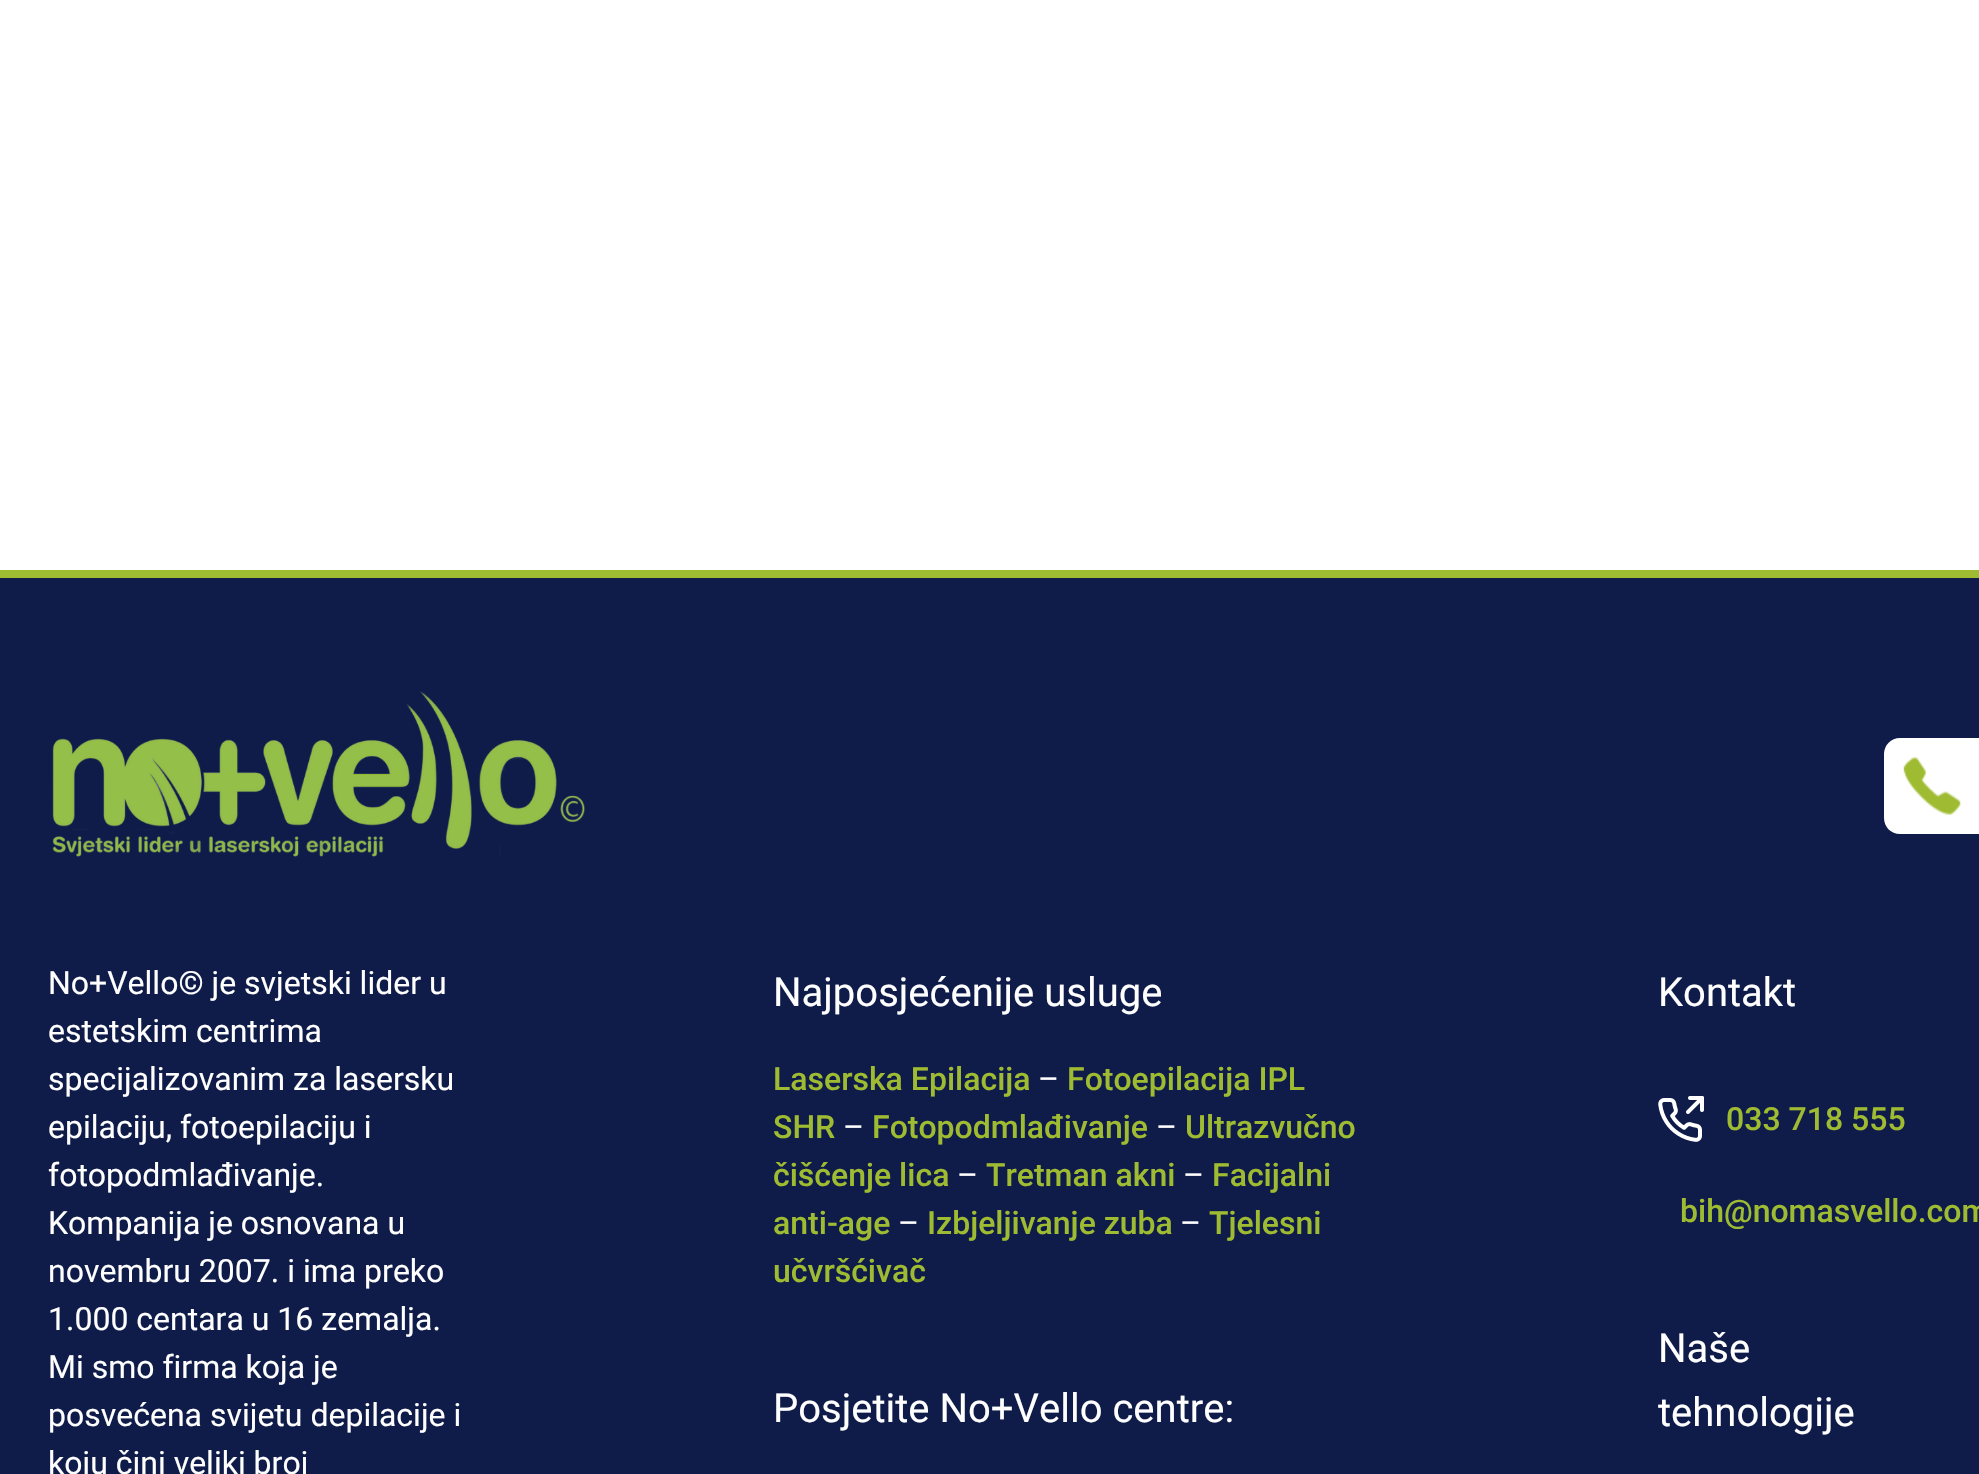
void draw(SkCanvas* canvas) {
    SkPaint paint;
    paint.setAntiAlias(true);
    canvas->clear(0xFFFFFFFF);
    paint.setColor(0xFF0F1C49);
    canvas->drawRect(SkRect::MakeXYWH(0, 578, 1979, 896), paint);
    paint.setColor(0xFFFFFFFF);
    canvas->drawPath(SkPathBuilder().moveTo(1900, 738).lineTo(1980, 738).lineTo(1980, 834).lineTo(1900, 834).cubicTo(1891, 834, 1884, 827, 1884, 818).lineTo(1884, 754).cubicTo(1884, 745, 1891, 738, 1900, 738).close().detach(), paint);
    canvas->drawImageRect(SkImages::DeferredFromEncodedData(SkData::MakeFromFileName("img1.png")), SkRect::MakeXYWH(1903, 757, 58, 58), SkSamplingOptions());
    paint.setColor(0xFF9EBB31);
    canvas->drawRect(SkRect::MakeXYWH(0, 570, 1979, 8), paint);
    canvas->drawImageRect(SkImages::DeferredFromEncodedData(SkData::MakeFromFileName("img2.png")), SkRect::MakeXYWH(52, 691, 533, 166), SkSamplingOptions());
    SkFont font1(fontMgr->matchFamilyStyle("Roboto", SkFontStyle::Normal()), 32);
    font1.setSubpixel(true);
    paint.setColor(0xFFFFFFFF);
    canvas->drawString("No+Vello© je svjetski lider u", 48, 994, font1, paint);
    canvas->drawString("estetskim centrima", 48, 1042, font1, paint);
    canvas->drawString("specijalizovanim za lasersku", 48, 1090, font1, paint);
    canvas->drawString("epilaciju, fotoepilaciju i", 48, 1138, font1, paint);
    canvas->drawString("fotopodmlađivanje.", 48, 1186, font1, paint);
    canvas->drawString("Kompanija je osnovana u", 48, 1234, font1, paint);
    canvas->drawString("novembru 2007. i ima preko", 48, 1282, font1, paint);
    canvas->drawString("1.000 centara u 16 zemalja.", 48, 1330, font1, paint);
    canvas->drawString("Mi smo firma koja je", 48, 1378, font1, paint);
    canvas->drawString("posvećena svijetu depilacije i", 48, 1426, font1, paint);
    canvas->drawString("koju čini veliki broj", 48, 1474, font1, paint);
    SkFont font2(fontMgr->matchFamilyStyle("Roboto", SkFontStyle::Normal()), 40);
    font2.setSubpixel(true);
    canvas->drawString("Najposjećenije usluge", 773, 1006, font2, paint);
    SkFont font3(fontMgr->matchFamilyStyle("Roboto", SkFontStyle(500, SkFontStyle::kNormal_Width, SkFontStyle::kUpright_Slant)), 32);
    font3.setSubpixel(true);
    paint.setColor(0xFF9EBB31);
    canvas->drawString("Laserska Epilacija", 773, 1090, font3, paint);
    paint.setColor(0xFFFFFFFF);
    canvas->drawString("–", 1038, 1090, font1, paint);
    paint.setColor(0xFF9EBB31);
    canvas->drawString("Fotoepilacija IPL", 1067, 1090, font3, paint);
    canvas->drawString("SHR", 773, 1138, font3, paint);
    paint.setColor(0xFFFFFFFF);
    canvas->drawString("–", 843, 1138, font1, paint);
    paint.setColor(0xFF9EBB31);
    canvas->drawString("Fotopodmlađivanje", 872, 1138, font3, paint);
    paint.setColor(0xFFFFFFFF);
    canvas->drawString("–", 1156, 1138, font1, paint);
    paint.setColor(0xFF9EBB31);
    canvas->drawString("Ultrazvučno", 1185, 1138, font3, paint);
    canvas->drawString("čišćenje lica", 773, 1186, font3, paint);
    paint.setColor(0xFFFFFFFF);
    canvas->drawString("–", 957, 1186, font1, paint);
    paint.setColor(0xFF9EBB31);
    canvas->drawString("Tretman akni", 986, 1186, font3, paint);
    paint.setColor(0xFFFFFFFF);
    canvas->drawString("–", 1183, 1186, font1, paint);
    paint.setColor(0xFF9EBB31);
    canvas->drawString("Facijalni", 1212, 1186, font3, paint);
    canvas->drawString("anti-age", 773, 1234, font3, paint);
    paint.setColor(0xFFFFFFFF);
    canvas->drawString("–", 898, 1234, font1, paint);
    paint.setColor(0xFF9EBB31);
    canvas->drawString("Izbjeljivanje zuba", 927, 1234, font3, paint);
    paint.setColor(0xFFFFFFFF);
    canvas->drawString("–", 1180, 1234, font1, paint);
    paint.setColor(0xFF9EBB31);
    canvas->drawString("Tjelesni", 1209, 1234, font3, paint);
    canvas->drawString("učvršćivač", 773, 1282, font3, paint);
    paint.setColor(0xFFFFFFFF);
    canvas->drawString("Posjetite No+Vello centre:", 773, 1422, font2, paint);
    canvas->drawString("Kontakt", 1658, 1006, font2, paint);
    canvas->drawImageRect(SkImages::DeferredFromEncodedData(SkData::MakeFromFileName("img3.png")), SkRect::MakeXYWH(1658, 1096, 46, 46), SkSamplingOptions());
    paint.setColor(0xFF9EBB31);
    canvas->drawString("033 718 555", 1726, 1130, font3, paint);
    canvas->drawString("bih@nomasvello.com", 1680, 1222, font3, paint);
    paint.setColor(0xFFFFFFFF);
    canvas->drawString("Naše", 1658, 1362, font2, paint);
    canvas->drawString("tehnologije", 1658, 1426, font2, paint);
}
